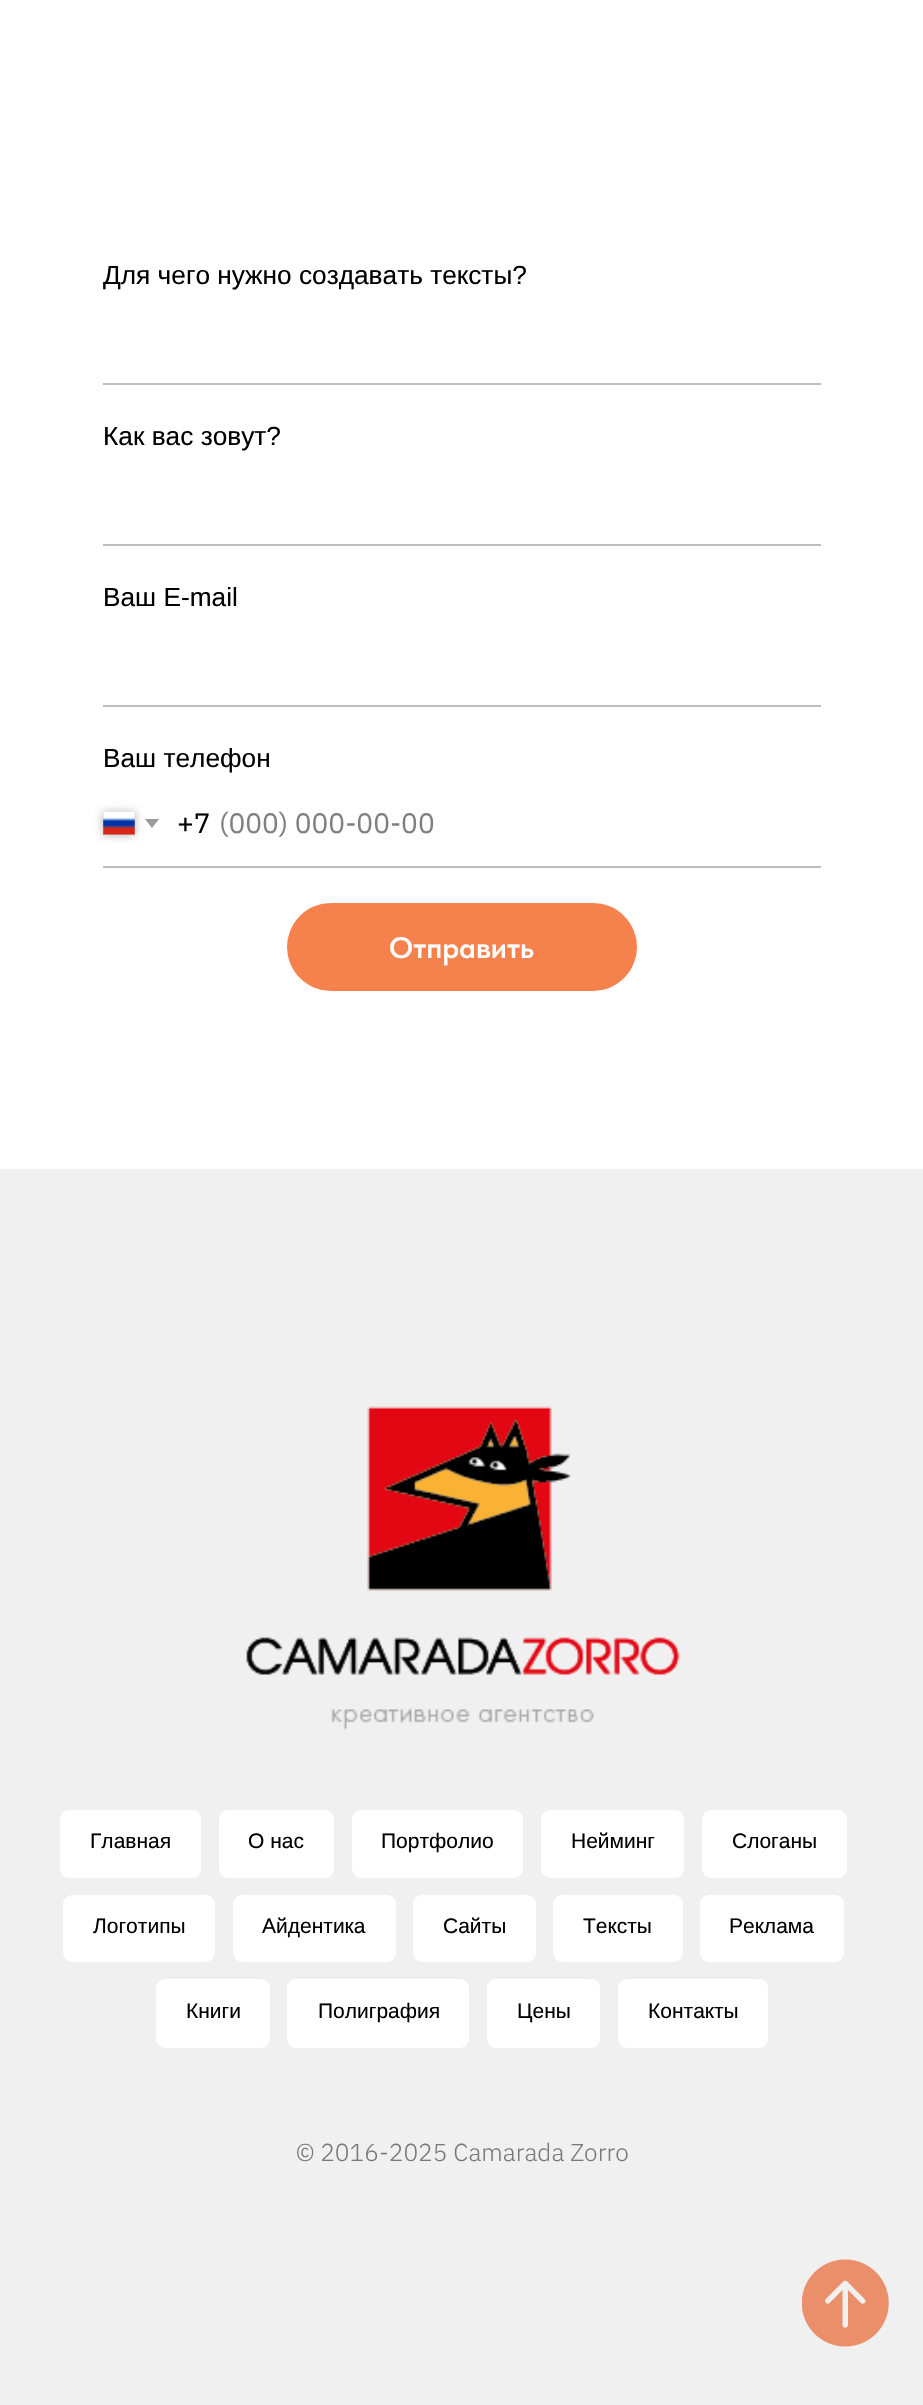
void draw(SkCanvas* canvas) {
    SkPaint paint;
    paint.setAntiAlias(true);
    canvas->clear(0xFFFFFFFF);
    SkFont font1(fontMgr->matchFamilyStyle("Liberation Sans", SkFontStyle::Normal()), 26.25f);
    font1.setSubpixel(true);
    paint.setColor(0xFF000000);
    canvas->drawString("Для чего нужно создавать тексты?", 103, 284, font1, paint);
    paint.setColor(0xFFBDBDBD);
    canvas->drawRect(SkRect::MakeXYWH(103, 383, 718, 2), paint);
    paint.setColor(0xFF000000);
    canvas->drawString("Как вас зовут?", 103, 445, font1, paint);
    paint.setColor(0xFFBDBDBD);
    canvas->drawRect(SkRect::MakeXYWH(103, 544, 718, 2), paint);
    paint.setColor(0xFF000000);
    canvas->drawString("Ваш E-mail", 103, 606, font1, paint);
    paint.setColor(0xFFBDBDBD);
    canvas->drawRect(SkRect::MakeXYWH(103, 705, 718, 2), paint);
    paint.setColor(0xFF000000);
    canvas->drawString("Ваш телефон", 103, 767, font1, paint);
    paint.setColor(0xFFBDBDBD);
    canvas->drawRect(SkRect::MakeXYWH(103, 866, 718, 2), paint);
    paint.setColor(0x4D000000);
    paint.setMaskFilter(SkMaskFilter::MakeBlur(kNormal_SkBlurStyle, 4.5f));
    canvas->drawRect(SkRect::MakeXYWH(103, 812, 32, 23), paint);
    paint.setMaskFilter(nullptr);
    paint.setColor(0xFFC5C5C5);
    canvas->drawRect(SkRect::MakeXYWH(103, 812, 32, 23), paint);
    canvas->drawImageRect(SkImages::DeferredFromEncodedData(SkData::MakeFromFileName("img1.png")), SkRect::MakeXYWH(103, 811, 32, 24), SkSamplingOptions());
    paint.setColor(0xFF9A9A9A);
    canvas->drawPath(SkPathBuilder().moveTo(145, 819).lineTo(159, 819).lineTo(152, 828).close().detach(), paint);
    SkFont font2(fontMgr->matchFamilyStyle("IBM Plex Sans", SkFontStyle::Normal()), 28);
    font2.setSubpixel(true);
    paint.setColor(0xFF000000);
    canvas->drawString("+7", 177, 833, font2, paint);
    paint.setColor(0xFF808080);
    canvas->drawString("(000) 000-00-00", 219, 833, font2, paint);
    paint.setColor(0xFFF5814C);
    canvas->drawRoundRect(SkRect::MakeXYWH(287, 903, 350, 88), 44, 44, paint);
    SkFont font3(fontMgr->matchFamilyStyle("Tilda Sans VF", SkFontStyle(600, SkFontStyle::kNormal_Width, SkFontStyle::kUpright_Slant)), 29.75f);
    font3.setSubpixel(true);
    paint.setColor(0xFFFFFFFF);
    canvas->drawString("Отправить", 389, 958, font3, paint);
    paint.setColor(0xFFF0F0F0);
    canvas->drawRect(SkRect::MakeXYWH(0, 1169, 923, 1236), paint);
    canvas->drawImageRect(SkImages::DeferredFromEncodedData(SkData::MakeFromFileName("img2.png")), SkRect::MakeXYWH(246, 1406, 434, 324), SkSamplingOptions());
    paint.setColor(0xFFFFFFFF);
    canvas->drawRoundRect(SkRect::MakeXYWH(60, 1810, 141, 68), 9, 9, paint);
    SkFont font4(fontMgr->matchFamilyStyle("Liberation Sans", SkFontStyle::Normal()), 21);
    font4.setSubpixel(true);
    paint.setColor(0xFF000000);
    canvas->drawString("Главная", 90, 1848, font4, paint);
    paint.setColor(0xFFFFFFFF);
    canvas->drawRoundRect(SkRect::MakeXYWH(219, 1810, 115, 68), 9, 9, paint);
    paint.setColor(0xFF000000);
    canvas->drawString("О нас", 248, 1848, font4, paint);
    paint.setColor(0xFFFFFFFF);
    canvas->drawRoundRect(SkRect::MakeXYWH(352, 1810, 171, 68), 9, 9, paint);
    paint.setColor(0xFF000000);
    canvas->drawString("Портфолио", 381, 1848, font4, paint);
    paint.setColor(0xFFFFFFFF);
    canvas->drawRoundRect(SkRect::MakeXYWH(541, 1810, 143, 68), 9, 9, paint);
    paint.setColor(0xFF000000);
    canvas->drawString("Нейминг", 571, 1848, font4, paint);
    paint.setColor(0xFFFFFFFF);
    canvas->drawRoundRect(SkRect::MakeXYWH(702, 1810, 145, 68), 9, 9, paint);
    paint.setColor(0xFF000000);
    canvas->drawString("Слоганы", 732, 1848, font4, paint);
    paint.setColor(0xFFFFFFFF);
    canvas->drawRoundRect(SkRect::MakeXYWH(63, 1895, 152, 67), 9, 9, paint);
    paint.setColor(0xFF000000);
    canvas->drawString("Логотипы", 93, 1933, font4, paint);
    paint.setColor(0xFFFFFFFF);
    canvas->drawRoundRect(SkRect::MakeXYWH(233, 1895, 163, 67), 9, 9, paint);
    paint.setColor(0xFF000000);
    canvas->drawString("Айдентика", 262, 1933, font4, paint);
    paint.setColor(0xFFFFFFFF);
    canvas->drawRoundRect(SkRect::MakeXYWH(413, 1895, 123, 67), 9, 9, paint);
    paint.setColor(0xFF000000);
    canvas->drawString("Сайты", 443, 1933, font4, paint);
    paint.setColor(0xFFFFFFFF);
    canvas->drawRoundRect(SkRect::MakeXYWH(553, 1895, 130, 67), 9, 9, paint);
    paint.setColor(0xFF000000);
    canvas->drawString("Тексты", 583, 1933, font4, paint);
    paint.setColor(0xFFFFFFFF);
    canvas->drawRoundRect(SkRect::MakeXYWH(700, 1895, 144, 67), 9, 9, paint);
    paint.setColor(0xFF000000);
    canvas->drawString("Реклама", 729, 1933, font4, paint);
    paint.setColor(0xFFFFFFFF);
    canvas->drawRoundRect(SkRect::MakeXYWH(156, 1979, 114, 69), 9, 9, paint);
    paint.setColor(0xFF000000);
    canvas->drawString("Книги", 186, 2018, font4, paint);
    paint.setColor(0xFFFFFFFF);
    canvas->drawRoundRect(SkRect::MakeXYWH(287, 1979, 182, 69), 9, 9, paint);
    paint.setColor(0xFF000000);
    canvas->drawString("Полиграфия", 318, 2018, font4, paint);
    paint.setColor(0xFFFFFFFF);
    canvas->drawRoundRect(SkRect::MakeXYWH(487, 1979, 113, 69), 9, 9, paint);
    paint.setColor(0xFF000000);
    canvas->drawString("Цены", 517, 2018, font4, paint);
    paint.setColor(0xFFFFFFFF);
    canvas->drawRoundRect(SkRect::MakeXYWH(618, 1979, 150, 69), 9, 9, paint);
    paint.setColor(0xFF000000);
    canvas->drawString("Контакты", 648, 2018, font4, paint);
    SkFont font5(fontMgr->matchFamilyStyle("IBM Plex Sans", SkFontStyle(300, SkFontStyle::kNormal_Width, SkFontStyle::kUpright_Slant)), 24.5f);
    font5.setSubpixel(true);
    paint.setColor(0xFF787878);
    canvas->drawString("© 2016-2025 Camarada Zorro", 296, 2161, font5, paint);
    canvas->drawImageRect(SkImages::DeferredFromEncodedData(SkData::MakeFromFileName("img3.png")), SkRect::MakeXYWH(802, 2259, 87, 88), SkSamplingOptions());
}
